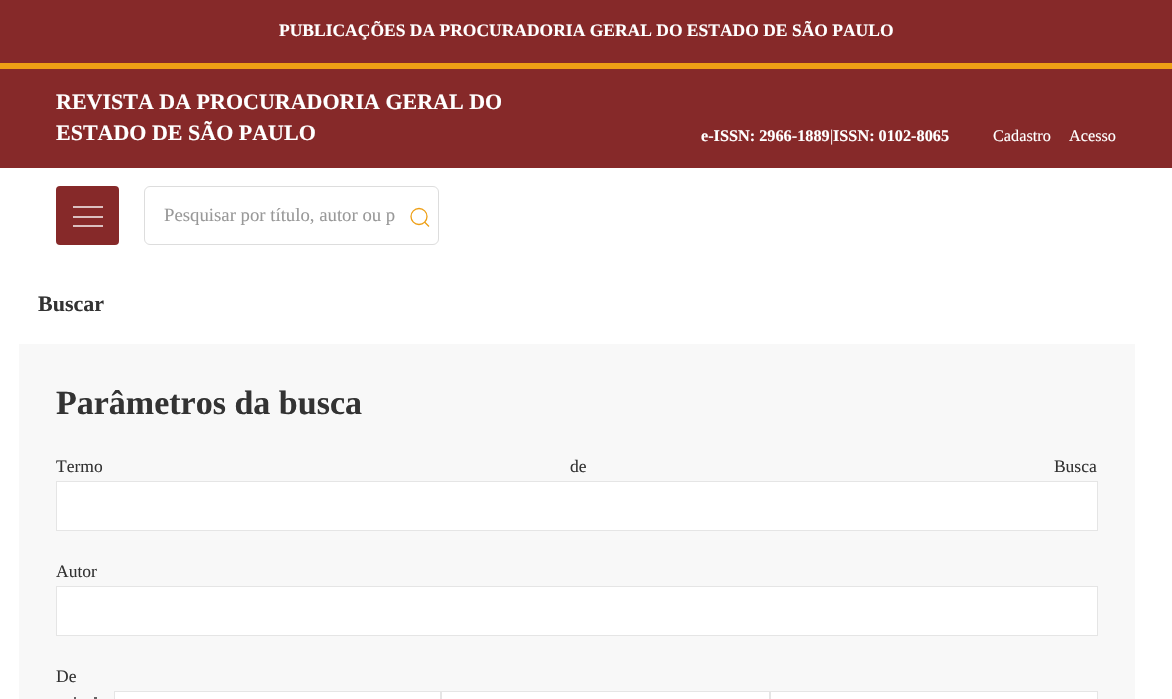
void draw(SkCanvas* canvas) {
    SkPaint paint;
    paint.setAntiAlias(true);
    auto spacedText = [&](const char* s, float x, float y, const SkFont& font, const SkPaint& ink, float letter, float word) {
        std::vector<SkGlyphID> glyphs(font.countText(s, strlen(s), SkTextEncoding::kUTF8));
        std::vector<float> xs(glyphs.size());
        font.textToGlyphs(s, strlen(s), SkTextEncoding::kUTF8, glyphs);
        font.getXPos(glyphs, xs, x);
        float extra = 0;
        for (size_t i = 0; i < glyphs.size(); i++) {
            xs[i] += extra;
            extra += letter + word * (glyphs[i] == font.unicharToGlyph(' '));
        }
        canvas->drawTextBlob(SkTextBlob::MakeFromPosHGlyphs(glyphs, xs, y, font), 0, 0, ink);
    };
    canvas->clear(0xFF862929);
    paint.setColor(0xFFEE9F15);
    canvas->drawRect(SkRect::MakeXYWH(0, 63, 1172, 6), paint);
    SkFont font1(fontMgr->matchFamilyStyle("Liberation Serif", SkFontStyle::Bold()), 17.5f);
    font1.setSubpixel(true);
    paint.setColor(0xFFFFFFFF);
    canvas->drawString("PUBLICAÇÕES DA PROCURADORIA GERAL DO ESTADO DE SÃO PAULO", 279, 36, font1, paint);
    SkFont font2(fontMgr->matchFamilyStyle("Liberation Serif", SkFontStyle::Bold()), 22);
    font2.setSubpixel(true);
    canvas->drawString("REVISTA DA PROCURADORIA GERAL DO", 56, 109, font2, paint);
    canvas->drawString("ESTADO DE SÃO PAULO", 56, 140, font2, paint);
    SkFont font3(fontMgr->matchFamilyStyle("Liberation Serif", SkFontStyle::Bold()), 16.25f);
    font3.setSubpixel(true);
    canvas->drawString("e-ISSN: 2966-1889", 701, 141, font3, paint);
    SkFont font4(fontMgr->matchFamilyStyle("Liberation Serif", SkFontStyle::Normal()), 16.25f);
    font4.setSubpixel(true);
    canvas->drawString("|", 830, 141, font4, paint);
    canvas->drawString("ISSN: 0102-8065", 833, 141, font3, paint);
    canvas->drawString("Cadastro", 993, 141, font4, paint);
    canvas->drawString("Acesso", 1069, 141, font4, paint);
    canvas->drawRect(SkRect::MakeXYWH(0, 168, 1172, 531), paint);
    paint.setColor(0xFF862929);
    canvas->drawRoundRect(SkRect::MakeXYWH(56, 186, 63, 59), 4, 4, paint);
    paint.setColor(0xFFDBBFBF);
    canvas->drawRect(SkRect::MakeXYWH(73, 206, 30, 2), paint);
    canvas->drawRect(SkRect::MakeXYWH(73, 216, 30, 2), paint);
    canvas->drawRect(SkRect::MakeXYWH(73, 225, 30, 2), paint);
    paint.setStyle(SkPaint::kStroke_Style);
    paint.setStrokeWidth(1);
    paint.setColor(0xFFDDDDDD);
    canvas->drawRoundRect(SkRect::MakeXYWH(144.5f, 186.5f, 294, 58), 5.5f, 5.5f, paint);
    SkFont font5(fontMgr->matchFamilyStyle("Liberation Serif", SkFontStyle::Normal()), 18.75f);
    font5.setSubpixel(true);
    paint.setStyle(SkPaint::kFill_Style);
    paint.setColor(0xFF999999);
    canvas->drawString("Pesquisar por título, autor ou p", 164, 221, font5, paint);
    paint.setStyle(SkPaint::kStroke_Style);
    paint.setStrokeWidth(1.3f);
    paint.setColor(0xFFEE9F15);
    canvas->drawCircle(419, 216.5f, 8, paint);
    canvas->drawPath(SkPathBuilder().moveTo(424.5f, 222).lineTo(429, 226.5f).close().detach(), paint);
    paint.setStyle(SkPaint::kFill_Style);
    paint.setColor(0xFF333333);
    canvas->drawString("Buscar", 38, 311, font2, paint);
    paint.setColor(0xFFF8F8F8);
    canvas->drawRect(SkRect::MakeXYWH(19, 344, 1116, 355), paint);
    SkFont font6(fontMgr->matchFamilyStyle("Liberation Serif", SkFontStyle::Bold()), 34);
    font6.setSubpixel(true);
    paint.setColor(0xFF333333);
    canvas->drawString("Parâmetros da busca", 56, 414, font6, paint);
    SkFont font7(fontMgr->matchFamilyStyle("Liberation Serif", SkFontStyle::Normal()), 17.5f);
    font7.setSubpixel(true);
    spacedText("Termo de Busca", 56, 472, font7, paint, 0, 463);
    paint.setColor(0xFFFFFFFF);
    canvas->drawRect(SkRect::MakeXYWH(56.5f, 481.5f, 1041, 49), paint);
    paint.setStyle(SkPaint::kStroke_Style);
    paint.setStrokeWidth(1);
    paint.setColor(0xFFE5E5E5);
    canvas->drawRect(SkRect::MakeXYWH(56.5f, 481.5f, 1041, 49), paint);
    paint.setStyle(SkPaint::kFill_Style);
    paint.setColor(0xFF333333);
    canvas->drawString("Autor", 56, 577, font7, paint);
    paint.setColor(0xFFFFFFFF);
    canvas->drawRect(SkRect::MakeXYWH(56.5f, 586.5f, 1041, 49), paint);
    paint.setStyle(SkPaint::kStroke_Style);
    paint.setColor(0xFFE5E5E5);
    canvas->drawRect(SkRect::MakeXYWH(56.5f, 586.5f, 1041, 49), paint);
    paint.setStyle(SkPaint::kFill_Style);
    paint.setColor(0xFF333333);
    canvas->drawString("De", 56, 682, font7, paint);
    paint.setColor(0xFF666666);
    canvas->drawRect(SkRect::MakeXYWH(74, 697, 2, 2), paint);
    canvas->drawRect(SkRect::MakeXYWH(94, 697, 3, 2), paint);
    paint.setColor(0xFFFFFFFF);
    canvas->drawRect(SkRect::MakeXYWH(114.5f, 691.5f, 326, 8), paint);
    paint.setStyle(SkPaint::kStroke_Style);
    paint.setColor(0xFFE5E5E5);
    canvas->drawRect(SkRect::MakeXYWH(114.5f, 691.5f, 326, 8), paint);
    paint.setStyle(SkPaint::kFill_Style);
    paint.setColor(0xFFFFFFFF);
    canvas->drawRect(SkRect::MakeXYWH(441.5f, 691.5f, 328, 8), paint);
    paint.setStyle(SkPaint::kStroke_Style);
    paint.setColor(0xFFE5E5E5);
    canvas->drawRect(SkRect::MakeXYWH(441.5f, 691.5f, 328, 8), paint);
    paint.setStyle(SkPaint::kFill_Style);
    paint.setColor(0xFFFFFFFF);
    canvas->drawRect(SkRect::MakeXYWH(770.5f, 691.5f, 327, 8), paint);
    paint.setStyle(SkPaint::kStroke_Style);
    paint.setColor(0xFFE5E5E5);
    canvas->drawRect(SkRect::MakeXYWH(770.5f, 691.5f, 327, 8), paint);
}
